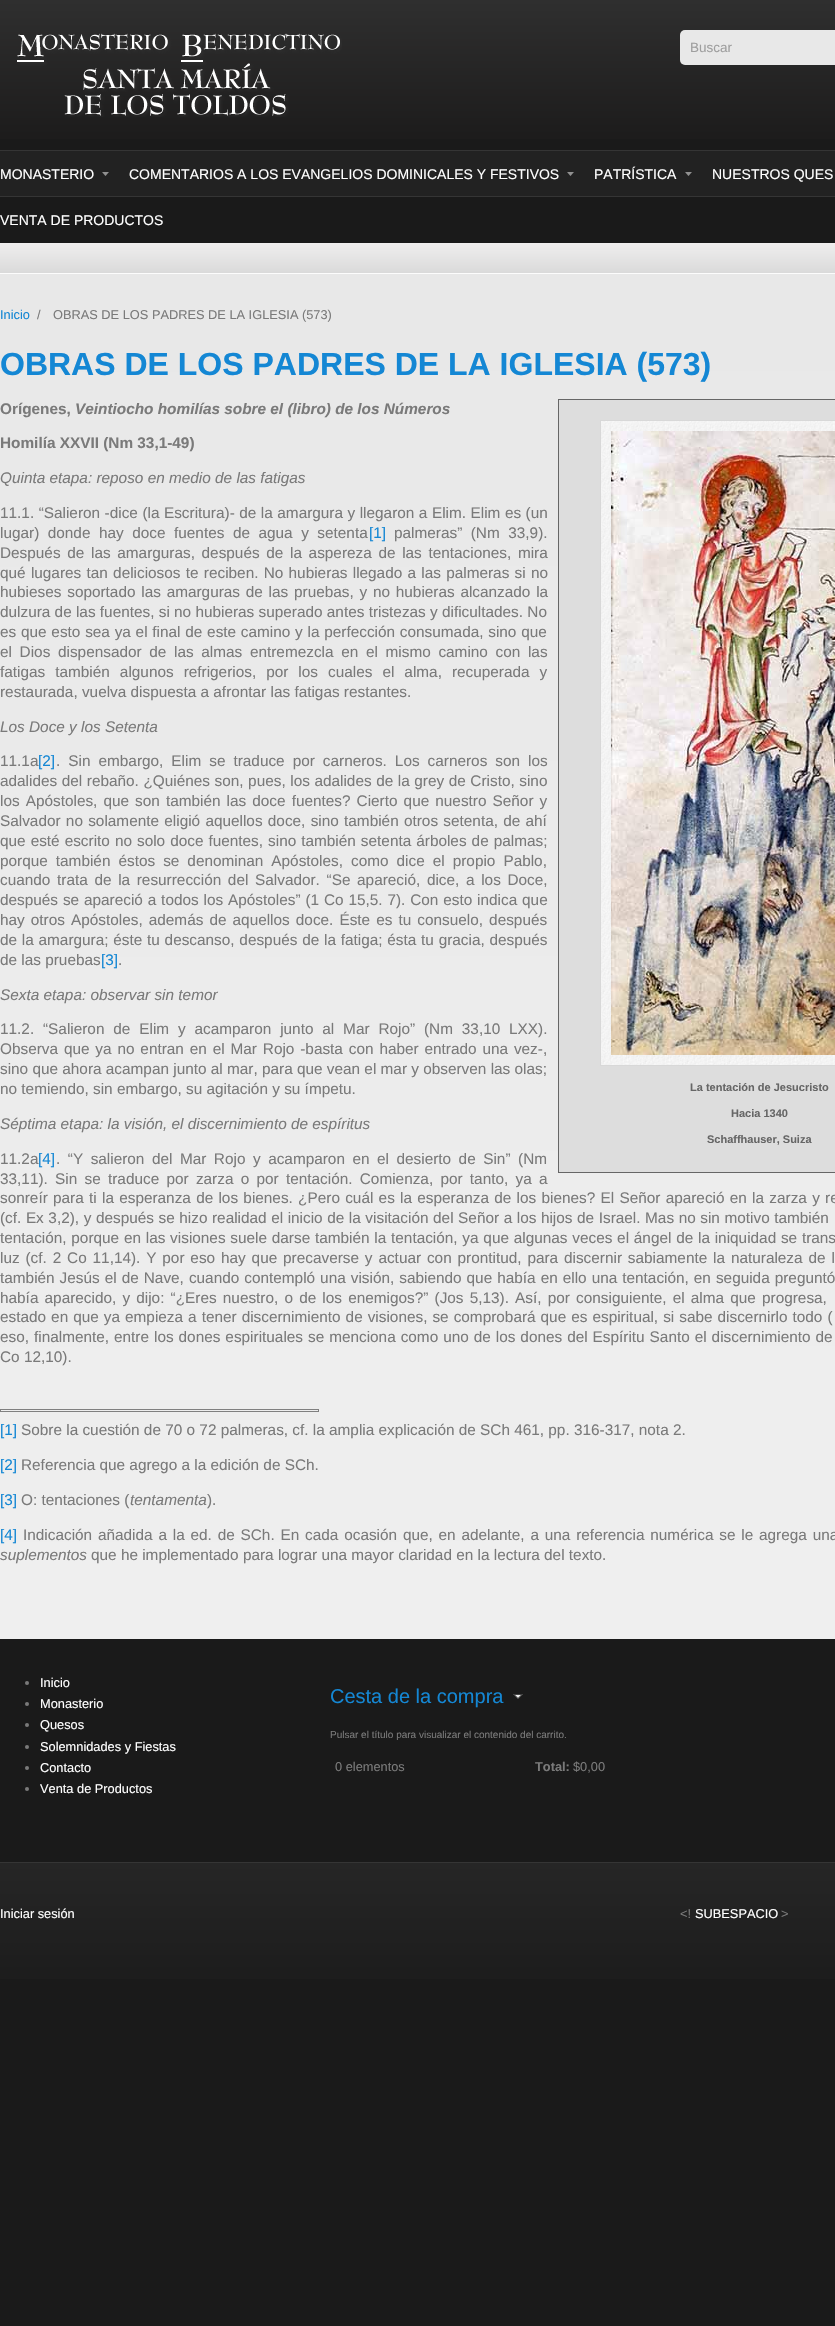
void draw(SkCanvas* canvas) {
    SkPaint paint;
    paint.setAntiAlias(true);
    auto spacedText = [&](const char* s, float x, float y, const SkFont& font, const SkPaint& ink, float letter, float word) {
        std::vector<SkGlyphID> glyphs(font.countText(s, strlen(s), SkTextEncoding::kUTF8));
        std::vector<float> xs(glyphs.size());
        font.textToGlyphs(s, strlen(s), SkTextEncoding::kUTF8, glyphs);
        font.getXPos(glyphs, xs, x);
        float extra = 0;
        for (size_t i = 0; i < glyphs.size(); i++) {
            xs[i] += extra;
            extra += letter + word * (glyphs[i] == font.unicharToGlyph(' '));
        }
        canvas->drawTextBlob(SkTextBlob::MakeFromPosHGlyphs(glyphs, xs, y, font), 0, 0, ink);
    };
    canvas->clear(0xFF1A1A1A);
    {
        const SkColor colors[] = {0xFF2F2F2F, 0xFF1B1A1A};
        const float stops[] = {0, 1};
        const SkPoint ends[] = {{418, 0}, {418, 150}};
        paint.setShader(SkGradientShader::MakeLinear(ends, colors, stops, 2, SkTileMode::kClamp));
        paint.setAlpha(255);
    }
    canvas->drawRect(SkRect::MakeXYWH(0, 0, 835, 139), paint);
    canvas->drawImageRect(SkImages::DeferredFromEncodedData(SkData::MakeFromFileName("img1.png")), SkRect::MakeXYWH(17, 33, 325, 84), SkSamplingOptions());
    paint.setShader(nullptr);
    paint.setColor(0xFFE8E8E8);
    canvas->drawRoundRect(SkRect::MakeXYWH(680, 30, 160, 35), 5, 5, paint);
    SkFont font1(fontMgr->matchFamilyStyle("Liberation Sans", SkFontStyle::Normal()), 13.5f);
    font1.setSubpixel(true);
    paint.setColor(0xFF9F9F9F);
    canvas->drawString("Buscar", 690, 52, font1, paint);
    paint.setColor(0xFF222222);
    canvas->drawRect(SkRect::MakeXYWH(0, 151, 835, 45), paint);
    paint.setColor(0xFF353535);
    canvas->drawRect(SkRect::MakeXYWH(0, 150, 835, 1), paint);
    canvas->drawRect(SkRect::MakeXYWH(0, 196, 835, 1), paint);
    canvas->drawImageRect(SkImages::DeferredFromEncodedData(SkData::MakeFromFileName("img2.png")), SkRect::MakeXYWH(102, 172, 7, 4), SkSamplingOptions());
    SkFont font2(fontMgr->matchFamilyStyle("Liberation Sans", SkFontStyle::Normal()), 14);
    font2.setSubpixel(true);
    paint.setColor(0xFFFFFFFF);
    canvas->drawString("MONASTERIO", 0, 179, font2, paint);
    canvas->drawImageRect(SkImages::DeferredFromEncodedData(SkData::MakeFromFileName("img2.png")), SkRect::MakeXYWH(567, 172, 7, 4), SkSamplingOptions());
    canvas->drawString("COMENTARIOS A LOS EVANGELIOS DOMINICALES Y FESTIVOS", 129, 179, font2, paint);
    canvas->drawImageRect(SkImages::DeferredFromEncodedData(SkData::MakeFromFileName("img2.png")), SkRect::MakeXYWH(685, 172, 7, 4), SkSamplingOptions());
    canvas->drawString("PATRÍSTICA", 594, 179, font2, paint);
    canvas->drawString("NUESTROS QUES", 712, 179, font2, paint);
    canvas->drawString("VENTA DE PRODUCTOS", 0, 225, font2, paint);
    {
        const SkColor colors[] = {0xFFEFEEEE, 0xFFDADADA};
        const float stops[] = {0, 1};
        const SkPoint ends[] = {{418, 243}, {418, 273}};
        paint.setShader(SkGradientShader::MakeLinear(ends, colors, stops, 2, SkTileMode::kClamp));
        paint.setAlpha(255);
    }
    canvas->drawRect(SkRect::MakeXYWH(0, 243, 835, 30), paint);
    paint.setShader(nullptr);
    paint.setColor(0xFFFCFCFC);
    canvas->drawRect(SkRect::MakeXYWH(0, 273, 835, 1), paint);
    {
        const SkColor colors[] = {0xFFE8E8E8, 0xFFEFEFEF};
        const float stops[] = {0, 1};
        const SkPoint ends[] = {{417, 274}, {418, 1639}};
        paint.setShader(SkGradientShader::MakeLinear(ends, colors, stops, 2, SkTileMode::kClamp));
        paint.setAlpha(255);
    }
    canvas->drawRect(SkRect::MakeXYWH(0, 274, 835, 1365), paint);
    SkFont font3(fontMgr->matchFamilyStyle("Liberation Sans", SkFontStyle::Normal()), 12.8f);
    font3.setSubpixel(true);
    paint.setShader(nullptr);
    paint.setColor(0xFF1487D4);
    canvas->drawString("Inicio", 0, 319, font3, paint);
    paint.setColor(0xFF7A7A7A);
    canvas->drawString("/", 37, 319, font3, paint);
    canvas->drawString("OBRAS DE LOS PADRES DE LA IGLESIA (573)", 53, 319, font3, paint);
    SkFont font4(fontMgr->matchFamilyStyle("Liberation Sans", SkFontStyle::Bold()), 32);
    font4.setSubpixel(true);
    paint.setColor(0xFF1487D4);
    canvas->drawString("OBRAS DE LOS PADRES DE LA IGLESIA (573)", 0, 375, font4, paint);
    SkFont font5(fontMgr->matchFamilyStyle("Liberation Sans", SkFontStyle::Bold()), 15.35f);
    font5.setSubpixel(true);
    paint.setColor(0xFF7A7A7A);
    canvas->drawString("Orígenes,", 0, 414, font5, paint);
    SkFont font6(fontMgr->matchFamilyStyle("Liberation Sans", SkFontStyle::BoldItalic()), 15.35f);
    font6.setSubpixel(true);
    canvas->drawString("Veintiocho homilías sobre el (libro) de los Números", 75, 414, font6, paint);
    canvas->drawString("Homilía XXVII (Nm 33,1-49)", 0, 448, font5, paint);
    SkFont font7(fontMgr->matchFamilyStyle("Liberation Sans", SkFontStyle::Italic()), 15.35f);
    font7.setSubpixel(true);
    canvas->drawString("Quinta etapa: reposo en medio de las fatigas", 0, 483, font7, paint);
    SkFont font8(fontMgr->matchFamilyStyle("Liberation Sans", SkFontStyle::Normal()), 15.35f);
    font8.setSubpixel(true);
    spacedText("11.1. “Salieron -dice (la Escritura)- de la amargura y llegaron a Elim. Elim es (un", 0, 518, font8, paint, 0, 0.25f);
    spacedText("lugar) donde hay doce fuentes de agua y setenta", 0, 538, font8, paint, 0, 4.25f);
    paint.setColor(0xFF1487D4);
    canvas->drawString("[1]", 369, 538, font8, paint);
    paint.setColor(0xFF7A7A7A);
    spacedText("palmeras” (Nm 33,9).", 394, 538, font8, paint, 0, 4.25f);
    spacedText("Después de las amarguras, después de la aspereza de las tentaciones, mira", 0, 558, font8, paint, 0, 2.4f);
    spacedText("qué lugares tan deliciosos te reciben. No hubieras llegado a las palmeras si no", 0, 578, font8, paint, 0, 1);
    spacedText("hubieses soportado las amarguras de las pruebas, y no hubieras alcanzado la", 0, 597, font8, paint, 0, 1.5f);
    canvas->drawString("dulzura de las fuentes, si no hubieras superado antes tristezas y dificultades. No", 0, 617, font8, paint);
    spacedText("es que esto sea ya el final de este camino y la perfección consumada, sino que", 0, 637, font8, paint, 0, 0.5f);
    spacedText("el Dios dispensador de las almas entremezcla en el mismo camino con las", 0, 657, font8, paint, 0, 3.4f);
    spacedText("fatigas también algunos refrigerios, por los cuales el alma, recuperada y", 0, 677, font8, paint, 0, 5.75f);
    canvas->drawString("restaurada, vuelva dispuesta a afrontar las fatigas restantes.", 0, 697, font8, paint);
    canvas->drawString("Los Doce y los Setenta", 0, 732, font7, paint);
    canvas->drawString("11.1a", 0, 766, font8, paint);
    paint.setColor(0xFF1487D4);
    canvas->drawString("[2]", 38, 766, font8, paint);
    paint.setColor(0xFF7A7A7A);
    spacedText(". Sin embargo, Elim se traduce por carneros. Los carneros son los", 56, 766, font8, paint, 0, 3.75f);
    spacedText("adalides del rebaño. ¿Quiénes son, pues, los adalides de la grey de Cristo, sino", 0, 786, font8, paint, 0, 0.3f);
    spacedText("los Apóstoles, que son también las doce fuentes? Cierto que nuestro Señor y", 0, 806, font8, paint, 0, 1.8f);
    spacedText("Salvador no solamente eligió aquellos doce, sino también otros setenta, de ahí", 0, 826, font8, paint, 0, 1);
    spacedText("que esté escrito no solo doce fuentes, sino también setenta árboles de palmas;", 0, 846, font8, paint, 0, 0.75f);
    spacedText("porque también éstos se denominan Apóstoles, como dice el propio Pablo,", 0, 866, font8, paint, 0, 3.75f);
    spacedText("cuando trata de la resurrección del Salvador. “Se apareció, dice, a los Doce,", 0, 885, font8, paint, 0, 2.4f);
    spacedText("después se apareció a todos los Apóstoles” (1 Co 15,5. 7). Con esto indica que", 0, 905, font8, paint, 0, 0.6f);
    spacedText("hay otros Apóstoles, además de aquellos doce. Éste es tu consuelo, después", 0, 925, font8, paint, 0, 1.8f);
    spacedText("de la amargura; éste tu descanso, después de la fatiga; ésta tu gracia, después", 0, 945, font8, paint, 0, 0.5f);
    canvas->drawString("de las pruebas", 0, 965, font8, paint);
    paint.setColor(0xFF1487D4);
    canvas->drawString("[3]", 101, 965, font8, paint);
    paint.setColor(0xFF7A7A7A);
    canvas->drawString(".", 118, 965, font8, paint);
    canvas->drawString("Sexta etapa: observar sin temor", 0, 1000, font7, paint);
    spacedText("11.2. “Salieron de Elim y acamparon junto al Mar Rojo” (Nm 33,10 LXX).", 0, 1034, font8, paint, 0, 4.6f);
    spacedText("Observa que ya no entran en el Mar Rojo -basta con haber entrado una vez-,", 0, 1054, font8, paint, 0, 1.6f);
    canvas->drawString("sino que ahora acampan junto al mar, para que vean el mar y observen las olas;", 0, 1074, font8, paint);
    canvas->drawString("no temiendo, sin embargo, su agitación y su ímpetu.", 0, 1094, font8, paint);
    canvas->drawString("Séptima etapa: la visión, el discernimiento de espíritus", 0, 1129, font7, paint);
    canvas->drawString("11.2a", 0, 1164, font8, paint);
    paint.setColor(0xFF1487D4);
    canvas->drawString("[4]", 38, 1164, font8, paint);
    paint.setColor(0xFF7A7A7A);
    spacedText(". “Y salieron del Mar Rojo y acamparon en el desierto de Sin” (Nm", 56, 1164, font8, paint, 0, 3.25f);
    spacedText("33,11). Sin se traduce por zarza o por tentación. Comienza, por tanto, ya a", 0, 1184, font8, paint, 0, 3);
    spacedText("sonreír para ti la esperanza de los bienes. ¿Pero cuál es la esperanza de los bienes? El Señor apareció en la zarza y re", 0, 1203, font8, paint, 0, 1);
    spacedText("(cf. Ex 3,2), y después se hizo realidad el inicio de la visitación del Señor a los hijos de Israel. Mas no sin motivo también", 0, 1223, font8, paint, 0, 0.3f);
    spacedText("tentación, porque en las visiones suele darse también la tentación, ya que algunas veces el ángel de la iniquidad se trans", 0, 1243, font8, paint, 0, 0.5f);
    spacedText("luz (cf. 2 Co 11,14). Y por eso hay que precaverse y actuar con prontitud, para discernir sabiamente la naturaleza de l", 0, 1263, font8, paint, 0, 1.6f);
    spacedText("también Jesús el de Nave, cuando contempló una visión, sabiendo que había en ello una tentación, en seguida preguntó", 0, 1283, font8, paint, 0, 0.75f);
    spacedText("había aparecido, y dijo: “¿Eres nuestro, o de los enemigos?” (Jos 5,13). Así, por consiguiente, el alma que progresa,", 0, 1303, font8, paint, 0, 1.9f);
    spacedText("estado en que ya empieza a tener discernimiento de visiones, se comprobará que es espiritual, si sabe discernirlo todo (", 0, 1322, font8, paint, 0, 0.75f);
    spacedText("eso, finalmente, entre los dones espirituales se menciona como uno de los dones del Espíritu Santo el discernimiento de", 0, 1342, font8, paint, 0, 0.7f);
    canvas->drawString("Co 12,10).", 0, 1362, font8, paint);
    paint.setStyle(SkPaint::kStroke_Style);
    paint.setStrokeWidth(1);
    paint.setColor(0xFF808080);
    canvas->drawRect(SkRect::MakeXYWH(0.5f, 1409.5f, 318, 2), paint);
    paint.setStyle(SkPaint::kFill_Style);
    paint.setColor(0xFF1487D4);
    canvas->drawString("[1]", 0, 1435, font8, paint);
    paint.setColor(0xFF7A7A7A);
    canvas->drawString("Sobre la cuestión de 70 o 72 palmeras, cf. la amplia explicación de SCh 461, pp. 316-317, nota 2.", 21, 1435, font8, paint);
    paint.setColor(0xFF1487D4);
    canvas->drawString("[2]", 0, 1470, font8, paint);
    paint.setColor(0xFF7A7A7A);
    canvas->drawString("Referencia que agrego a la edición de SCh.", 21, 1470, font8, paint);
    paint.setColor(0xFF1487D4);
    canvas->drawString("[3]", 0, 1505, font8, paint);
    paint.setColor(0xFF7A7A7A);
    canvas->drawString("O: tentaciones (", 21, 1505, font8, paint);
    canvas->drawString("tentamenta", 130, 1505, font7, paint);
    canvas->drawString(").", 207, 1505, font8, paint);
    paint.setColor(0xFF1487D4);
    canvas->drawString("[4]", 0, 1540, font8, paint);
    paint.setColor(0xFF7A7A7A);
    spacedText("Indicación añadida a la ed. de SCh. En cada ocasión que, en adelante, a una referencia numérica se le agrega una", 23, 1540, font8, paint, 0, 1.55f);
    canvas->drawString("suplementos", 0, 1560, font7, paint);
    canvas->drawString("que he implementado para lograr una mayor claridad en la lectura del texto.", 91, 1560, font8, paint);
    paint.setColor(0xFFDDDDDD);
    canvas->drawRect(SkRect::MakeXYWH(558.5f, 399.5f, 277, 773), paint);
    paint.setStyle(SkPaint::kStroke_Style);
    paint.setColor(0xFF666666);
    canvas->drawRect(SkRect::MakeXYWH(558.5f, 399.5f, 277, 773), paint);
    canvas->drawImageRect(SkImages::DeferredFromEncodedData(SkData::MakeFromFileName("img3.png")), SkRect::MakeXYWH(601, 421, 234, 644), SkSamplingOptions());
    paint.setColor(0xFFD8D8D8);
    canvas->drawRect(SkRect::MakeXYWH(600.5f, 420.5f, 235, 645), paint);
    SkFont font9(fontMgr->matchFamilyStyle("Liberation Sans", SkFontStyle::Bold()), 11);
    font9.setSubpixel(true);
    paint.setStyle(SkPaint::kFill_Style);
    paint.setColor(0xFF666666);
    canvas->drawString("La tentación de Jesucristo", 690, 1091, font9, paint);
    canvas->drawString("Hacia 1340", 731, 1117, font9, paint);
    canvas->drawString("Schaffhauser, Suiza", 707, 1143, font9, paint);
    paint.setColor(0xFF7A7A7A);
    canvas->drawCircle(27, 1683, 2, paint);
    paint.setColor(0xFFFFFFFF);
    canvas->drawString("Inicio", 40, 1687, font3, paint);
    paint.setColor(0xFF7A7A7A);
    canvas->drawCircle(27, 1704, 2, paint);
    paint.setColor(0xFFFFFFFF);
    canvas->drawString("Monasterio", 40, 1708, font3, paint);
    paint.setColor(0xFF7A7A7A);
    canvas->drawCircle(27, 1725, 2, paint);
    paint.setColor(0xFFFFFFFF);
    canvas->drawString("Quesos", 40, 1729, font3, paint);
    paint.setColor(0xFF7A7A7A);
    canvas->drawCircle(27, 1747, 2, paint);
    paint.setColor(0xFFFFFFFF);
    canvas->drawString("Solemnidades y Fiestas", 40, 1751, font3, paint);
    paint.setColor(0xFF7A7A7A);
    canvas->drawCircle(27, 1768, 2, paint);
    paint.setColor(0xFFFFFFFF);
    canvas->drawString("Contacto", 40, 1772, font3, paint);
    paint.setColor(0xFF7A7A7A);
    canvas->drawCircle(27, 1789, 2, paint);
    paint.setColor(0xFFFFFFFF);
    canvas->drawString("Venta de Productos", 40, 1793, font3, paint);
    SkFont font10(fontMgr->matchFamilyStyle("Liberation Sans", SkFontStyle::Normal()), 20);
    font10.setSubpixel(true);
    paint.setColor(0xFF1487D4);
    canvas->drawString("Cesta de la compra", 330, 1703, font10, paint);
    canvas->drawImageRect(SkImages::DeferredFromEncodedData(SkData::MakeFromFileName("img4.png")), SkRect::MakeXYWH(513, 1694, 10, 5), SkSamplingOptions());
    SkFont font11(fontMgr->matchFamilyStyle("Liberation Sans", SkFontStyle::Normal()), 10);
    font11.setSubpixel(true);
    paint.setColor(0xFF7A7A7A);
    canvas->drawString("Pulsar el título para visualizar el contenido del carrito.", 330, 1738, font11, paint);
    canvas->drawString("0 elementos", 335, 1771, font3, paint);
    SkFont font12(fontMgr->matchFamilyStyle("Liberation Sans", SkFontStyle::Bold()), 12.8f);
    font12.setSubpixel(true);
    canvas->drawString("Total:", 535, 1771, font12, paint);
    canvas->drawString("$0,00", 573, 1771, font3, paint);
    {
        const SkColor colors[] = {0xFF262626, 0xFF1A1A1A};
        const float stops[] = {0, 1};
        const SkPoint ends[] = {{418, 1863}, {418, 2010}};
        paint.setShader(SkGradientShader::MakeLinear(ends, colors, stops, 2, SkTileMode::kClamp));
        paint.setAlpha(255);
    }
    canvas->drawRect(SkRect::MakeXYWH(0, 1863, 835, 116), paint);
    paint.setShader(nullptr);
    paint.setColor(0xFF353535);
    canvas->drawRect(SkRect::MakeXYWH(0, 1862, 835, 1), paint);
    paint.setColor(0xFFFFFFFF);
    canvas->drawString("Iniciar sesión", 0, 1918, font3, paint);
    paint.setColor(0xFF7A7A7A);
    canvas->drawString("<!", 680, 1918, font3, paint);
    paint.setColor(0xFFFFFFFF);
    canvas->drawString("SUBESPACIO", 695, 1918, font3, paint);
    paint.setColor(0xFF7A7A7A);
    canvas->drawString(">", 781, 1918, font3, paint);
}
